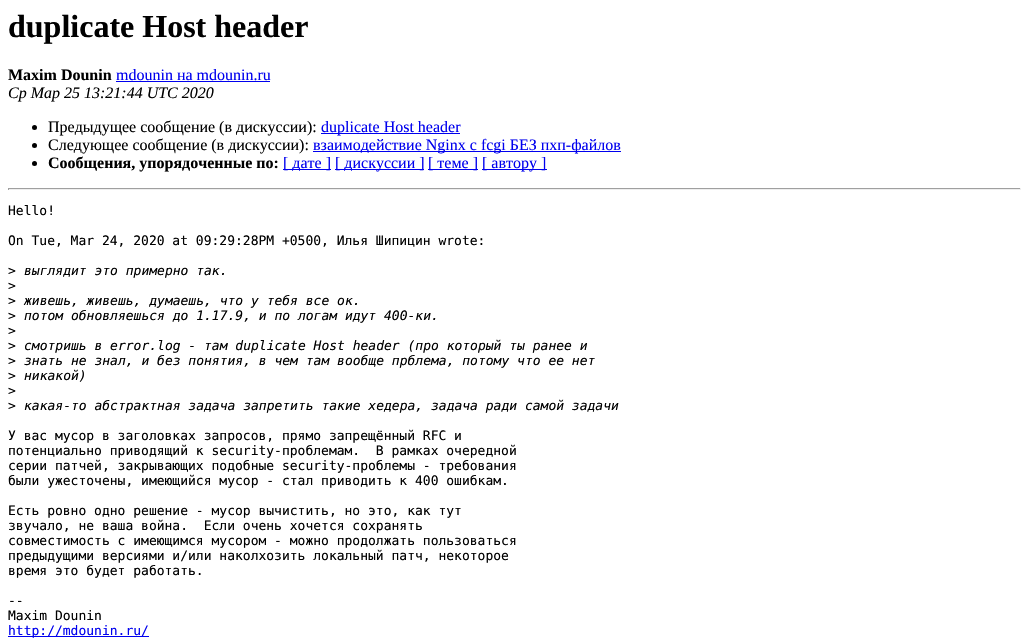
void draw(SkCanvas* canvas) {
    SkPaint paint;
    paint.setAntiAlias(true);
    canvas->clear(0xFFFFFFFF);
    SkFont font1(fontMgr->matchFamilyStyle("Liberation Serif", SkFontStyle::Bold()), 32);
    font1.setSubpixel(true);
    paint.setColor(0xFF000000);
    canvas->drawString("duplicate Host header", 8, 37, font1, paint);
    SkFont font2(fontMgr->matchFamilyStyle("Liberation Serif", SkFontStyle::Bold()), 16);
    font2.setSubpixel(true);
    canvas->drawString("Maxim Dounin", 8, 80, font2, paint);
    SkFont font3(fontMgr->matchFamilyStyle("Liberation Serif", SkFontStyle::Normal()), 16);
    font3.setSubpixel(true);
    paint.setColor(0xFF0000EE);
    canvas->drawString("mdounin на mdounin.ru", 116, 80, font3, paint);
    canvas->drawRect(SkRect::MakeXYWH(116, 81, 154, 1), paint);
    SkFont font4(fontMgr->matchFamilyStyle("Liberation Serif", SkFontStyle::Italic()), 16);
    font4.setSubpixel(true);
    paint.setColor(0xFF000000);
    canvas->drawString("Ср Мар 25 13:21:44 UTC 2020", 8, 98, font4, paint);
    canvas->drawCircle(34.5f, 127.5f, 2.5f, paint);
    canvas->drawString("Предыдущее сообщение (в дискуссии):", 48, 132, font3, paint);
    paint.setColor(0xFF0000EE);
    canvas->drawRect(SkRect::MakeXYWH(321, 133, 139, 1), paint);
    canvas->drawString("duplicate Host header", 321, 132, font3, paint);
    paint.setColor(0xFF000000);
    canvas->drawCircle(34.5f, 145.5f, 2.5f, paint);
    canvas->drawString("Следующее сообщение (в дискуссии):", 48, 150, font3, paint);
    paint.setColor(0xFF0000EE);
    canvas->drawRect(SkRect::MakeXYWH(313, 151, 308, 1), paint);
    canvas->drawString("взаимодействие Nginx с fcgi БЕЗ пхп-файлов", 313, 150, font3, paint);
    paint.setColor(0xFF000000);
    canvas->drawCircle(34.5f, 163.5f, 2.5f, paint);
    canvas->drawString("Сообщения, упорядоченные по:", 48, 168, font2, paint);
    paint.setColor(0xFF0000EE);
    canvas->drawRect(SkRect::MakeXYWH(283, 169, 48, 1), paint);
    canvas->drawString("[ дате ]", 283, 168, font3, paint);
    canvas->drawRect(SkRect::MakeXYWH(335, 169, 89, 1), paint);
    canvas->drawString("[ дискуссии ]", 335, 168, font3, paint);
    canvas->drawRect(SkRect::MakeXYWH(428, 169, 50, 1), paint);
    canvas->drawString("[ теме ]", 428, 168, font3, paint);
    canvas->drawRect(SkRect::MakeXYWH(482, 169, 65, 1), paint);
    canvas->drawString("[ автору ]", 482, 168, font3, paint);
    paint.setColor(0xFF9F9F9F);
    canvas->drawRect(SkRect::MakeXYWH(8, 188, 1013, 1), paint);
    paint.setColor(0xFFEEEEEE);
    canvas->drawRect(SkRect::MakeXYWH(1020, 188, 1, 2), paint);
    canvas->drawRect(SkRect::MakeXYWH(8, 189, 1013, 1), paint);
    paint.setColor(0xFF9F9F9F);
    canvas->drawRect(SkRect::MakeXYWH(8, 188, 1, 2), paint);
    SkFont font5(fontMgr->matchFamilyStyle("DejaVu Sans Mono", SkFontStyle::Normal()), 13);
    font5.setSubpixel(true);
    paint.setColor(0xFF000000);
    canvas->drawString("Hello!", 8, 215, font5, paint);
    canvas->drawString("On Tue, Mar 24, 2020 at 09:29:28PM +0500, Илья Шипицин wrote:", 8, 245, font5, paint);
    canvas->drawString(">", 8, 275, font5, paint);
    SkFont font6(fontMgr->matchFamilyStyle("DejaVu Sans Mono", SkFontStyle::Italic()), 13);
    font6.setSubpixel(true);
    canvas->drawString("выглядит это примерно так.", 24, 275, font6, paint);
    canvas->drawString(">", 8, 290, font5, paint);
    canvas->drawString(">", 8, 305, font5, paint);
    canvas->drawString("живешь, живешь, думаешь, что у тебя все ок.", 24, 305, font6, paint);
    canvas->drawString(">", 8, 320, font5, paint);
    canvas->drawString("потом обновляешься до 1.17.9, и по логам идут 400-ки.", 24, 320, font6, paint);
    canvas->drawString(">", 8, 335, font5, paint);
    canvas->drawString(">", 8, 350, font5, paint);
    canvas->drawString("смотришь в error.log - там duplicate Host header (про который ты ранее и", 24, 350, font6, paint);
    canvas->drawString(">", 8, 365, font5, paint);
    canvas->drawString("знать не знал, и без понятия, в чем там вообще прблема, потому что ее нет", 24, 365, font6, paint);
    canvas->drawString(">", 8, 380, font5, paint);
    canvas->drawString("никакой)", 24, 380, font6, paint);
    canvas->drawString(">", 8, 395, font5, paint);
    canvas->drawString(">", 8, 410, font5, paint);
    canvas->drawString("какая-то абстрактная задача запретить такие хедера, задача ради самой задачи", 24, 410, font6, paint);
    canvas->drawString("У вас мусор в заголовках запросов, прямо запрещённый RFC и", 8, 440, font5, paint);
    canvas->drawString("потенциально приводящий к security-проблемам.  В рамках очередной", 8, 455, font5, paint);
    canvas->drawString("серии патчей, закрывающих подобные security-проблемы - требования", 8, 470, font5, paint);
    canvas->drawString("были ужесточены, имеющийся мусор - стал приводить к 400 ошибкам.", 8, 485, font5, paint);
    canvas->drawString("Есть ровно одно решение - мусор вычистить, но это, как тут", 8, 515, font5, paint);
    canvas->drawString("звучало, не ваша война.  Если очень хочется сохранять", 8, 530, font5, paint);
    canvas->drawString("совместимость с имеющимся мусором - можно продолжать пользоваться", 8, 545, font5, paint);
    canvas->drawString("предыдущими версиями и/или наколхозить локальный патч, некоторое", 8, 560, font5, paint);
    canvas->drawString("время это будет работать.", 8, 575, font5, paint);
    canvas->drawString("--", 8, 605, font5, paint);
    canvas->drawString("Maxim Dounin", 8, 620, font5, paint);
    paint.setColor(0xFF0000EE);
    canvas->drawRect(SkRect::MakeXYWH(8, 636, 141, 1), paint);
    canvas->drawString("http://mdounin.ru/", 8, 635, font5, paint);
}
